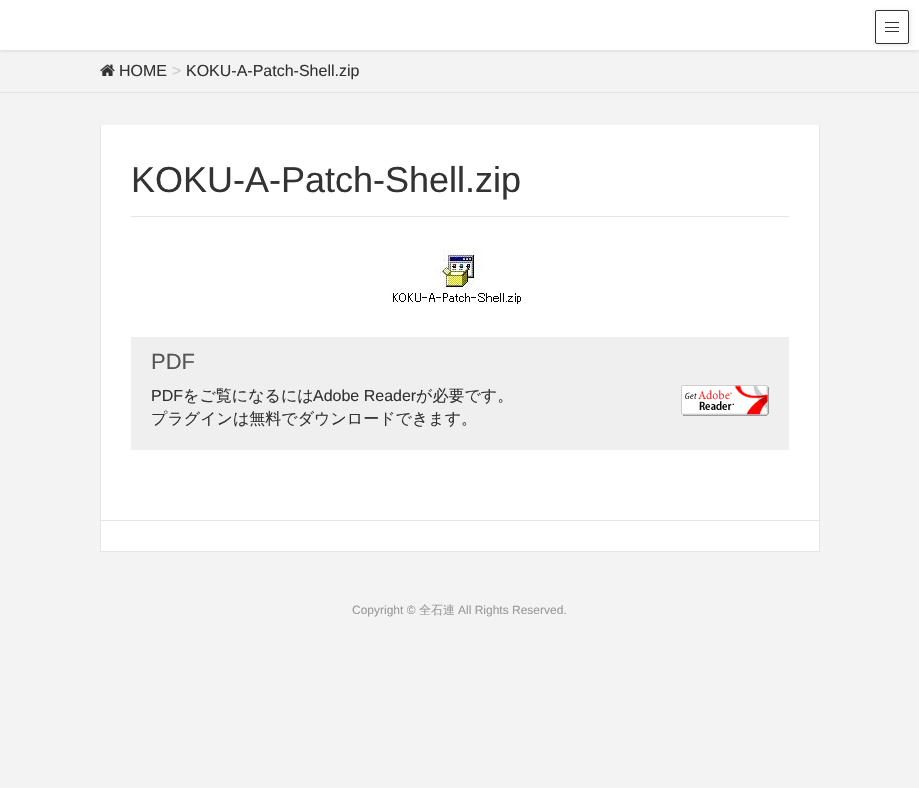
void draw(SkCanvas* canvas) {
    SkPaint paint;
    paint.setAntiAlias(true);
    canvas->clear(0xFFF3F3F3);
    paint.setColor(0x1A000000);
    paint.setMaskFilter(SkMaskFilter::MakeBlur(kNormal_SkBlurStyle, 1.5f));
    canvas->drawRect(SkRect::MakeXYWH(0, 1, 919, 50), paint);
    paint.setMaskFilter(nullptr);
    paint.setColor(0xFFFFFFFF);
    canvas->drawRect(SkRect::MakeXYWH(0, 0, 919, 50), paint);
    paint.setColor(0x1A000000);
    paint.setMaskFilter(SkMaskFilter::MakeBlur(kNormal_SkBlurStyle, 2));
    canvas->drawRoundRect(SkRect::MakeXYWH(876, 11, 34, 34), 2, 2, paint);
    paint.setMaskFilter(nullptr);
    paint.setColor(0xFFFFFFFF);
    canvas->drawRoundRect(SkRect::MakeXYWH(875, 10, 34, 34), 2, 2, paint);
    paint.setColor(0xFF333333);
    canvas->drawRect(SkRect::MakeXYWH(885, 22, 14, 1), paint);
    canvas->drawRect(SkRect::MakeXYWH(885, 27, 14, 1), paint);
    canvas->drawRect(SkRect::MakeXYWH(885, 31, 14, 1), paint);
    paint.setStyle(SkPaint::kStroke_Style);
    paint.setStrokeWidth(1);
    canvas->drawRoundRect(SkRect::MakeXYWH(875.5f, 10.5f, 33, 33), 1.5f, 1.5f, paint);
    paint.setStyle(SkPaint::kFill_Style);
    paint.setColor(0xFFE5E5E5);
    canvas->drawRect(SkRect::MakeXYWH(0, 92, 919, 1), paint);
    canvas->drawImageRect(SkImages::DeferredFromEncodedData(SkData::MakeFromFileName("img1.png")), SkRect::MakeXYWH(100, 64, 15, 12), SkSamplingOptions());
    SkFont font1(fontMgr->matchFamilyStyle("Liberation Sans", SkFontStyle::Normal()), 16);
    font1.setSubpixel(true);
    paint.setColor(0xFF333333);
    canvas->drawString("HOME", 119, 76, font1, paint);
    paint.setColor(0xFFCCCCCC);
    canvas->drawString(">", 172, 76, font1, paint);
    paint.setColor(0xFF333333);
    canvas->drawString("KOKU-A-Patch-Shell.zip", 186, 76, font1, paint);
    paint.setColor(0xFFFFFFFF);
    canvas->drawRect(SkRect::MakeXYWH(101, 125, 718, 395), paint);
    paint.setColor(0xFFE5E5E5);
    canvas->drawRect(SkRect::MakeXYWH(819, 125, 1, 427), paint);
    canvas->drawRect(SkRect::MakeXYWH(100, 520, 720, 1), paint);
    canvas->drawRect(SkRect::MakeXYWH(100, 125, 1, 396), paint);
    canvas->drawRect(SkRect::MakeXYWH(131, 216, 658, 1), paint);
    SkFont font2(fontMgr->matchFamilyStyle("Liberation Sans", SkFontStyle::Normal()), 36);
    font2.setSubpixel(true);
    paint.setColor(0xFF333333);
    canvas->drawString("KOKU-A-Patch-Shell.zip", 131, 192, font2, paint);
    canvas->drawImageRect(SkImages::DeferredFromEncodedData(SkData::MakeFromFileName("img2.png")), SkRect::MakeXYWH(389, 249, 132, 55), SkSamplingOptions());
    paint.setColor(0xFFEFEFEF);
    canvas->drawRect(SkRect::MakeXYWH(131, 337, 658, 113), paint);
    SkFont font3(fontMgr->matchFamilyStyle("Liberation Sans", SkFontStyle::Normal()), 22);
    font3.setSubpixel(true);
    paint.setColor(0xFF555555);
    canvas->drawString("PDF", 151, 369, font3, paint);
    paint.setColor(0xFF333333);
    canvas->drawString("PDF", 151, 401, font1, paint);
    SkFont font4(fontMgr->matchFamilyStyle("WenQuanYi Zen Hei", SkFontStyle(500, SkFontStyle::kNormal_Width, SkFontStyle::kUpright_Slant)), 16);
    font4.setSubpixel(true);
    canvas->drawString("をご覧になるには", 183, 401, font4, paint);
    canvas->drawString("Adobe Reader", 313, 401, font1, paint);
    canvas->drawString("が必要です。", 416, 401, font4, paint);
    canvas->drawString("プラグインは無料でダウンロードできます。", 151, 424, font4, paint);
    canvas->drawImageRect(SkImages::DeferredFromEncodedData(SkData::MakeFromFileName("img3.png")), SkRect::MakeXYWH(681, 385, 88, 31), SkSamplingOptions());
    paint.setColor(0xFFFFFFFF);
    canvas->drawRect(SkRect::MakeXYWH(101, 521, 718, 30), paint);
    paint.setColor(0xFFE5E5E5);
    canvas->drawRect(SkRect::MakeXYWH(100, 551, 720, 1), paint);
    canvas->drawRect(SkRect::MakeXYWH(100, 521, 1, 31), paint);
    SkFont font5(fontMgr->matchFamilyStyle("Liberation Sans", SkFontStyle::Normal()), 12);
    font5.setSubpixel(true);
    paint.setColor(0xFF999999);
    canvas->drawString("Copyright ©", 352, 614, font5, paint);
    SkFont font6(fontMgr->matchFamilyStyle("WenQuanYi Zen Hei", SkFontStyle(500, SkFontStyle::kNormal_Width, SkFontStyle::kUpright_Slant)), 12);
    font6.setSubpixel(true);
    canvas->drawString("全石連", 419, 614, font6, paint);
    canvas->drawString("All Rights Reserved.", 458, 614, font5, paint);
}
